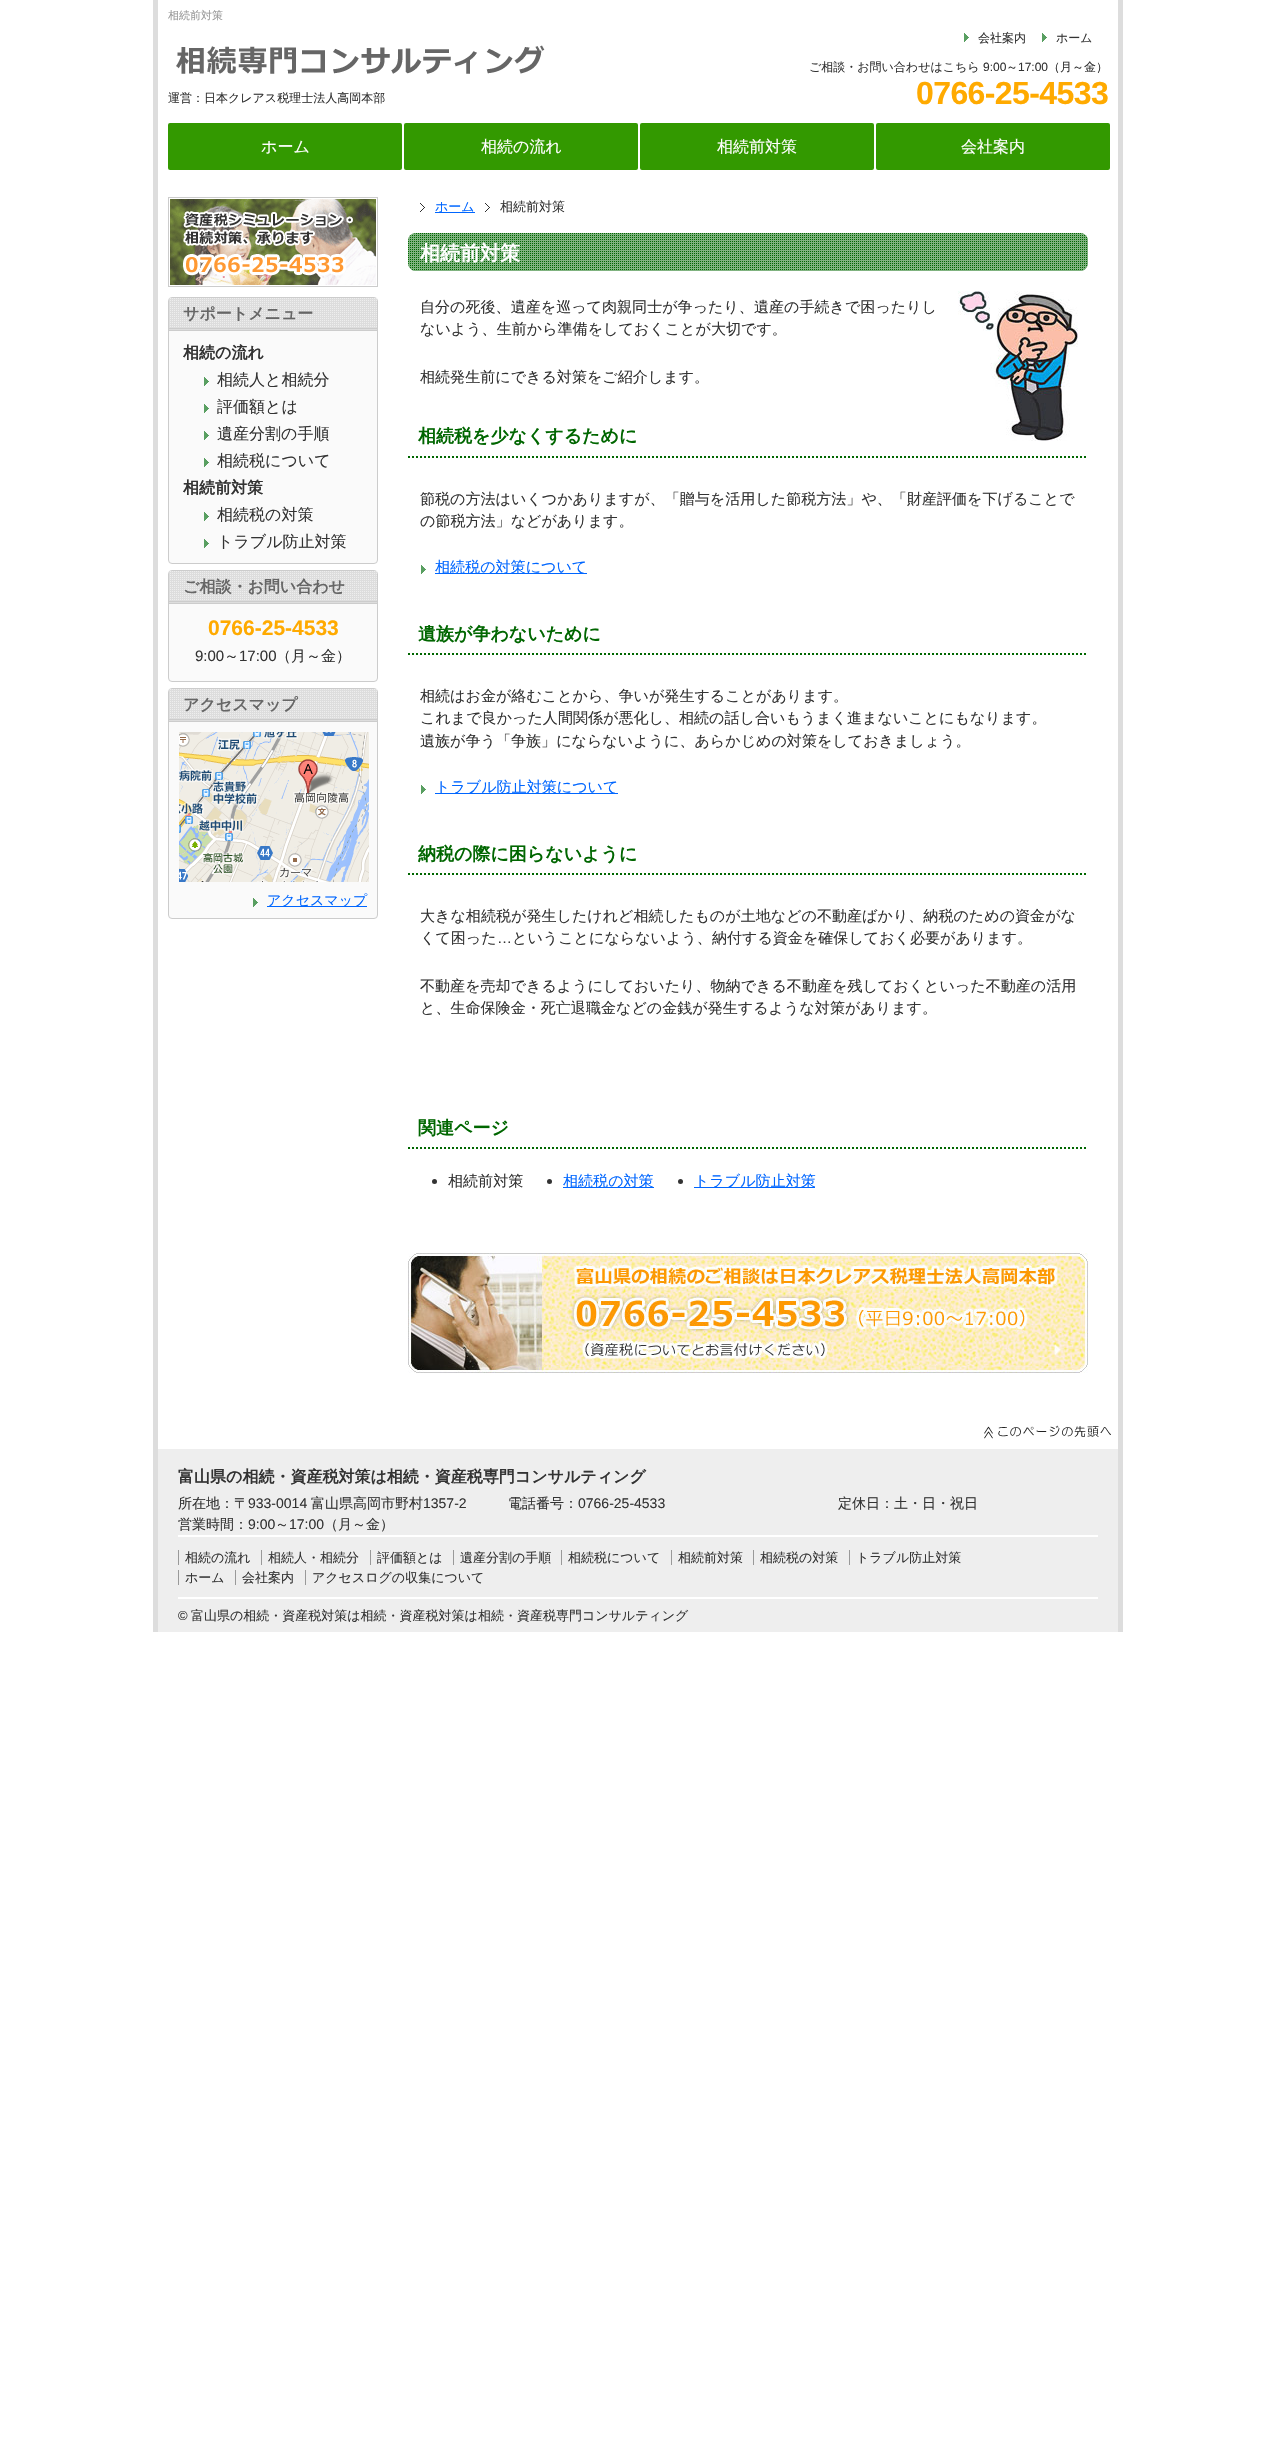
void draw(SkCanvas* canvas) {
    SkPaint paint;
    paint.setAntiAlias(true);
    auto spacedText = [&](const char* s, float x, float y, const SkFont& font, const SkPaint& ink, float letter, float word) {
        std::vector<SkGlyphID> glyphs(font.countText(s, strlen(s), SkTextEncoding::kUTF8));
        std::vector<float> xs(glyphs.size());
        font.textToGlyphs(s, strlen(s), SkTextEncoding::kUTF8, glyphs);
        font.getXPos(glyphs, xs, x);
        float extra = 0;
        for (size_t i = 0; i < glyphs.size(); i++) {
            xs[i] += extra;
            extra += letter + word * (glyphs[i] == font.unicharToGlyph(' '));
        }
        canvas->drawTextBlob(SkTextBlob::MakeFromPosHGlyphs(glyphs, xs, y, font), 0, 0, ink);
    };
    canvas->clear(0xFFFFFFFF);
    paint.setColor(0xFFDDDDDD);
    canvas->drawRect(SkRect::MakeXYWH(1118, 0, 5, 1632), paint);
    canvas->drawRect(SkRect::MakeXYWH(153, 0, 5, 1632), paint);
    SkFont font1(fontMgr->matchFamilyStyle("WenQuanYi Zen Hei", SkFontStyle(500, SkFontStyle::kNormal_Width, SkFontStyle::kUpright_Slant)), 11);
    font1.setSubpixel(true);
    paint.setColor(0xFF999999);
    canvas->drawString("相続前対策", 168, 19, font1, paint);
    canvas->drawImageRect(SkImages::DeferredFromEncodedData(SkData::MakeFromFileName("img1.png")), SkRect::MakeXYWH(176, 45, 369, 29), SkSamplingOptions());
    SkFont font2(fontMgr->matchFamilyStyle("WenQuanYi Zen Hei", SkFontStyle(500, SkFontStyle::kNormal_Width, SkFontStyle::kUpright_Slant)), 12);
    font2.setSubpixel(true);
    paint.setColor(0xFF333333);
    canvas->drawString("運営：日本クレアス税理士法人高岡本部", 168, 102, font2, paint);
    canvas->drawImageRect(SkImages::DeferredFromEncodedData(SkData::MakeFromFileName("img2.png")), SkRect::MakeXYWH(964, 33, 5, 9), SkSamplingOptions());
    canvas->drawString("会社案内", 978, 42, font2, paint);
    canvas->drawImageRect(SkImages::DeferredFromEncodedData(SkData::MakeFromFileName("img2.png")), SkRect::MakeXYWH(1042, 33, 5, 9), SkSamplingOptions());
    canvas->drawString("ホーム", 1056, 42, font2, paint);
    canvas->drawString("ご相談・お問い合わせはこちら", 809, 71, font2, paint);
    SkFont font3(fontMgr->matchFamilyStyle("Liberation Sans", SkFontStyle::Normal()), 12);
    font3.setSubpixel(true);
    canvas->drawString("9:00", 983, 71, font3, paint);
    canvas->drawString("～", 1006, 71, font2, paint);
    canvas->drawString("17:00", 1018, 71, font3, paint);
    canvas->drawString("（月～金）", 1048, 71, font2, paint);
    SkFont font4(fontMgr->matchFamilyStyle("Liberation Sans", SkFontStyle::Bold()), 32);
    font4.setSubpixel(true);
    paint.setColor(0xFFFFAA00);
    spacedText("0766-25-4533", 916, 104, font4, paint, -0.6f, 0);
    paint.setColor(0xFF339900);
    canvas->drawRoundRect(SkRect::MakeXYWH(168, 123, 234, 47), 2, 2, paint);
    SkFont font5(fontMgr->matchFamilyStyle("WenQuanYi Zen Hei", SkFontStyle(500, SkFontStyle::kNormal_Width, SkFontStyle::kUpright_Slant)), 16);
    font5.setSubpixel(true);
    paint.setColor(0xFFFFFFFF);
    canvas->drawString("ホーム", 261, 152, font5, paint);
    paint.setColor(0xFF339900);
    canvas->drawRoundRect(SkRect::MakeXYWH(404, 123, 234, 47), 2, 2, paint);
    paint.setColor(0xFFFFFFFF);
    canvas->drawString("相続の流れ", 481, 152, font5, paint);
    paint.setColor(0xFF339900);
    canvas->drawRoundRect(SkRect::MakeXYWH(640, 123, 234, 47), 2, 2, paint);
    paint.setColor(0xFFFFFFFF);
    canvas->drawString("相続前対策", 717, 152, font5, paint);
    paint.setColor(0xFF339900);
    canvas->drawRoundRect(SkRect::MakeXYWH(876, 123, 234, 47), 2, 2, paint);
    paint.setColor(0xFFFFFFFF);
    canvas->drawString("会社案内", 961, 152, font5, paint);
    canvas->drawImageRect(SkImages::DeferredFromEncodedData(SkData::MakeFromFileName("img3.png")), SkRect::MakeXYWH(168, 197, 210, 90), SkSamplingOptions());
    paint.setColor(0xFFFAFAFA);
    canvas->drawRoundRect(SkRect::MakeXYWH(168.5f, 297.5f, 209, 266), 3.5f, 3.5f, paint);
    paint.setStyle(SkPaint::kStroke_Style);
    paint.setStrokeWidth(1);
    paint.setColor(0xFFCCCCCC);
    canvas->drawRoundRect(SkRect::MakeXYWH(168.5f, 297.5f, 209, 266), 3.5f, 3.5f, paint);
    paint.setStyle(SkPaint::kFill_Style);
    paint.setColor(0xFFDDDDDD);
    canvas->drawRect(SkRect::MakeXYWH(169, 298, 208, 32), paint);
    canvas->drawImageRect(SkImages::DeferredFromEncodedData(SkData::MakeFromFileName("img4.png")), SkRect::MakeXYWH(170, 298, 207, 29), SkSamplingOptions());
    paint.setColor(0xFFCCCCCC);
    canvas->drawRect(SkRect::MakeXYWH(169, 328, 208, 1), paint);
    canvas->drawRect(SkRect::MakeXYWH(169, 330, 208, 1), paint);
    SkFont font6(fontMgr->matchFamilyStyle("WenQuanYi Zen Hei", SkFontStyle::Bold()), 16);
    font6.setSubpixel(true);
    paint.setColor(0xFF666666);
    canvas->drawString("サポートメニュー", 183, 319, font6, paint);
    paint.setColor(0xFF333333);
    canvas->drawString("相続の流れ", 183, 358, font6, paint);
    canvas->drawImageRect(SkImages::DeferredFromEncodedData(SkData::MakeFromFileName("img5.png")), SkRect::MakeXYWH(204, 377, 5, 9), SkSamplingOptions());
    canvas->drawString("相続人と相続分", 217, 385, font5, paint);
    canvas->drawImageRect(SkImages::DeferredFromEncodedData(SkData::MakeFromFileName("img5.png")), SkRect::MakeXYWH(204, 404, 5, 9), SkSamplingOptions());
    canvas->drawString("評価額とは", 217, 412, font5, paint);
    canvas->drawImageRect(SkImages::DeferredFromEncodedData(SkData::MakeFromFileName("img5.png")), SkRect::MakeXYWH(204, 431, 5, 9), SkSamplingOptions());
    canvas->drawString("遺産分割の手順", 217, 439, font5, paint);
    canvas->drawImageRect(SkImages::DeferredFromEncodedData(SkData::MakeFromFileName("img5.png")), SkRect::MakeXYWH(204, 458, 5, 9), SkSamplingOptions());
    canvas->drawString("相続税について", 217, 466, font5, paint);
    canvas->drawString("相続前対策", 183, 493, font6, paint);
    canvas->drawImageRect(SkImages::DeferredFromEncodedData(SkData::MakeFromFileName("img5.png")), SkRect::MakeXYWH(204, 512, 5, 9), SkSamplingOptions());
    canvas->drawString("相続税の対策", 217, 520, font5, paint);
    canvas->drawImageRect(SkImages::DeferredFromEncodedData(SkData::MakeFromFileName("img5.png")), SkRect::MakeXYWH(204, 539, 5, 9), SkSamplingOptions());
    canvas->drawString("トラブル防止対策", 217, 547, font5, paint);
    paint.setColor(0xFFFAFAFA);
    canvas->drawRoundRect(SkRect::MakeXYWH(168.5f, 570.5f, 209, 111), 3.5f, 3.5f, paint);
    paint.setStyle(SkPaint::kStroke_Style);
    paint.setColor(0xFFCCCCCC);
    canvas->drawRoundRect(SkRect::MakeXYWH(168.5f, 570.5f, 209, 111), 3.5f, 3.5f, paint);
    paint.setStyle(SkPaint::kFill_Style);
    paint.setColor(0xFFDDDDDD);
    canvas->drawRect(SkRect::MakeXYWH(169, 571, 208, 32), paint);
    canvas->drawImageRect(SkImages::DeferredFromEncodedData(SkData::MakeFromFileName("img4.png")), SkRect::MakeXYWH(170, 571, 207, 29), SkSamplingOptions());
    paint.setColor(0xFFCCCCCC);
    canvas->drawRect(SkRect::MakeXYWH(169, 601, 208, 1), paint);
    canvas->drawRect(SkRect::MakeXYWH(169, 603, 208, 1), paint);
    paint.setColor(0xFF666666);
    canvas->drawString("ご相談・お問い合わせ", 183, 592, font6, paint);
    SkFont font7(fontMgr->matchFamilyStyle("Liberation Sans", SkFontStyle::Bold()), 21);
    font7.setSubpixel(true);
    paint.setColor(0xFFFFAA00);
    canvas->drawString("0766-25-4533", 208, 635, font7, paint);
    SkFont font8(fontMgr->matchFamilyStyle("Liberation Sans", SkFontStyle::Normal()), 15);
    font8.setSubpixel(true);
    paint.setColor(0xFF333333);
    canvas->drawString("9:00", 195, 661, font8, paint);
    SkFont font9(fontMgr->matchFamilyStyle("WenQuanYi Zen Hei", SkFontStyle(500, SkFontStyle::kNormal_Width, SkFontStyle::kUpright_Slant)), 15);
    font9.setSubpixel(true);
    canvas->drawString("～", 224, 661, font9, paint);
    canvas->drawString("17:00", 239, 661, font8, paint);
    canvas->drawString("（月～金）", 276, 661, font9, paint);
    paint.setColor(0xFFFAFAFA);
    canvas->drawRoundRect(SkRect::MakeXYWH(168.5f, 688.5f, 209, 230), 3.5f, 3.5f, paint);
    paint.setStyle(SkPaint::kStroke_Style);
    paint.setColor(0xFFCCCCCC);
    canvas->drawRoundRect(SkRect::MakeXYWH(168.5f, 688.5f, 209, 230), 3.5f, 3.5f, paint);
    paint.setStyle(SkPaint::kFill_Style);
    paint.setColor(0xFFDDDDDD);
    canvas->drawRect(SkRect::MakeXYWH(169, 689, 208, 32), paint);
    canvas->drawImageRect(SkImages::DeferredFromEncodedData(SkData::MakeFromFileName("img4.png")), SkRect::MakeXYWH(170, 689, 207, 29), SkSamplingOptions());
    paint.setColor(0xFFCCCCCC);
    canvas->drawRect(SkRect::MakeXYWH(169, 719, 208, 1), paint);
    canvas->drawRect(SkRect::MakeXYWH(169, 721, 208, 1), paint);
    paint.setColor(0xFF666666);
    canvas->drawString("アクセスマップ", 183, 710, font6, paint);
    canvas->drawImageRect(SkImages::DeferredFromEncodedData(SkData::MakeFromFileName("img6.png")), SkRect::MakeXYWH(179, 732, 190, 150), SkSamplingOptions());
    canvas->drawImageRect(SkImages::DeferredFromEncodedData(SkData::MakeFromFileName("img5.png")), SkRect::MakeXYWH(253, 898, 5, 9), SkSamplingOptions());
    paint.setColor(0xFF0066FF);
    canvas->drawRect(SkRect::MakeXYWH(267, 906, 100, 1), paint);
    SkFont font10(fontMgr->matchFamilyStyle("WenQuanYi Zen Hei", SkFontStyle(500, SkFontStyle::kNormal_Width, SkFontStyle::kUpright_Slant)), 14);
    font10.setSubpixel(true);
    canvas->drawString("アクセスマップ", 267, 905, font10, paint);
    canvas->drawImageRect(SkImages::DeferredFromEncodedData(SkData::MakeFromFileName("img7.png")), SkRect::MakeXYWH(420, 203, 5, 9), SkSamplingOptions());
    canvas->drawRect(SkRect::MakeXYWH(435, 212, 40, 1), paint);
    SkFont font11(fontMgr->matchFamilyStyle("WenQuanYi Zen Hei", SkFontStyle(500, SkFontStyle::kNormal_Width, SkFontStyle::kUpright_Slant)), 13);
    font11.setSubpixel(true);
    canvas->drawString("ホーム", 435, 211, font11, paint);
    canvas->drawImageRect(SkImages::DeferredFromEncodedData(SkData::MakeFromFileName("img7.png")), SkRect::MakeXYWH(485, 203, 5, 9), SkSamplingOptions());
    paint.setColor(0xFF333333);
    canvas->drawString("相続前対策", 500, 211, font11, paint);
    paint.setColor(0xFF006600);
    canvas->drawRoundRect(SkRect::MakeXYWH(408, 233, 680, 38), 8, 8, paint);
    canvas->drawImageRect(SkImages::DeferredFromEncodedData(SkData::MakeFromFileName("img8.png")), SkRect::MakeXYWH(408, 233, 680, 38), SkSamplingOptions());
    SkFont font12(fontMgr->matchFamilyStyle("WenQuanYi Zen Hei", SkFontStyle::Bold()), 20);
    font12.setSubpixel(true);
    paint.setColor(0xFFFFFFFF);
    canvas->drawString("相続前対策", 420, 260, font12, paint);
    SkFont font13(fontMgr->matchFamilyStyle("WenQuanYi Zen Hei", SkFontStyle(500, SkFontStyle::kNormal_Width, SkFontStyle::kUpright_Slant)), 15.05f);
    font13.setSubpixel(true);
    paint.setColor(0xFF333333);
    canvas->drawString("自分の死後、遺産を巡って肉親同士が争ったり、遺産の手続きで困ったりし", 420, 312, font13, paint);
    canvas->drawString("ないよう、生前から準備をしておくことが大切です。", 420, 334, font13, paint);
    canvas->drawImageRect(SkImages::DeferredFromEncodedData(SkData::MakeFromFileName("img9.png")), SkRect::MakeXYWH(958, 291, 120, 150), SkSamplingOptions());
    canvas->drawString("相続発生前にできる対策をご紹介します。", 420, 382, font13, paint);
    paint.setStyle(SkPaint::kStroke_Style);
    paint.setStrokeWidth(2);
    paint.setColor(0xFF006600);
    paint.setPathEffect(SkDashPathEffect::Make({{2, 2}}, 0));
    canvas->drawPath(SkPathBuilder().moveTo(408, 457).lineTo(1088, 457).detach(), paint);
    paint.setPathEffect(nullptr);
    SkFont font14(fontMgr->matchFamilyStyle("WenQuanYi Zen Hei", SkFontStyle::Bold()), 18);
    font14.setSubpixel(true);
    paint.setStyle(SkPaint::kFill_Style);
    canvas->drawString("相続税を少なくするために", 418, 442, font14, paint);
    paint.setColor(0xFF333333);
    canvas->drawString("節税の方法はいくつかありますが、「贈与を活用した節税方法」や、「財産評価を下げることで", 420, 504, font13, paint);
    canvas->drawString("の節税方法」などがあります。", 420, 526, font13, paint);
    canvas->drawImageRect(SkImages::DeferredFromEncodedData(SkData::MakeFromFileName("img2.png")), SkRect::MakeXYWH(421, 565, 5, 9), SkSamplingOptions());
    paint.setColor(0xFF0066FF);
    canvas->drawRect(SkRect::MakeXYWH(435, 573, 152, 1), paint);
    canvas->drawString("相続税の対策について", 435, 572, font13, paint);
    paint.setStyle(SkPaint::kStroke_Style);
    paint.setColor(0xFF006600);
    paint.setPathEffect(SkDashPathEffect::Make({{2, 2}}, 0));
    canvas->drawPath(SkPathBuilder().moveTo(408, 654).lineTo(1088, 654).detach(), paint);
    paint.setPathEffect(nullptr);
    paint.setStyle(SkPaint::kFill_Style);
    canvas->drawString("遺族が争わないために", 418, 640, font14, paint);
    paint.setColor(0xFF333333);
    canvas->drawString("相続はお金が絡むことから、争いが発生することがあります。", 420, 701, font13, paint);
    canvas->drawString("これまで良かった人間関係が悪化し、相続の話し合いもうまく進まないことにもなります。", 420, 723, font13, paint);
    canvas->drawString("遺族が争う「争族」にならないように、あらかじめの対策をしておきましょう。", 420, 746, font13, paint);
    canvas->drawImageRect(SkImages::DeferredFromEncodedData(SkData::MakeFromFileName("img2.png")), SkRect::MakeXYWH(421, 785, 5, 9), SkSamplingOptions());
    paint.setColor(0xFF0066FF);
    canvas->drawRect(SkRect::MakeXYWH(435, 793, 183, 1), paint);
    canvas->drawString("トラブル防止対策について", 435, 792, font13, paint);
    paint.setStyle(SkPaint::kStroke_Style);
    paint.setColor(0xFF006600);
    paint.setPathEffect(SkDashPathEffect::Make({{2, 2}}, 0));
    canvas->drawPath(SkPathBuilder().moveTo(408, 874).lineTo(1088, 874).detach(), paint);
    paint.setPathEffect(nullptr);
    paint.setStyle(SkPaint::kFill_Style);
    canvas->drawString("納税の際に困らないように", 418, 860, font14, paint);
    paint.setColor(0xFF333333);
    canvas->drawString("大きな相続税が発生したけれど相続したものが土地などの不動産ばかり、納税のための資金がな", 420, 921, font13, paint);
    canvas->drawString("くて困った", 420, 943, font13, paint);
    SkFont font15(fontMgr->matchFamilyStyle("Liberation Sans", SkFontStyle::Normal()), 15.05f);
    font15.setSubpixel(true);
    canvas->drawString("…", 497, 943, font15, paint);
    canvas->drawString("ということにならないよう、納付する資金を確保しておく必要があります。", 512, 943, font13, paint);
    canvas->drawString("不動産を売却できるようにしておいたり、物納できる不動産を残しておくといった不動産の活用", 420, 991, font13, paint);
    canvas->drawString("と、生命保険金・死亡退職金などの金銭が発生するような対策があります。", 420, 1013, font13, paint);
    paint.setStyle(SkPaint::kStroke_Style);
    paint.setColor(0xFF006600);
    paint.setPathEffect(SkDashPathEffect::Make({{2, 2}}, 0));
    canvas->drawPath(SkPathBuilder().moveTo(408, 1148).lineTo(1088, 1148).detach(), paint);
    paint.setPathEffect(nullptr);
    paint.setStyle(SkPaint::kFill_Style);
    canvas->drawString("関連ページ", 418, 1134, font14, paint);
    paint.setColor(0xFF333333);
    canvas->drawCircle(434.5f, 1181.5f, 2.5f, paint);
    canvas->drawString("相続前対策", 448, 1186, font13, paint);
    canvas->drawCircle(549.5f, 1181.5f, 2.5f, paint);
    paint.setColor(0xFF0066FF);
    canvas->drawRect(SkRect::MakeXYWH(563, 1187, 91, 1), paint);
    canvas->drawString("相続税の対策", 563, 1186, font13, paint);
    paint.setColor(0xFF333333);
    canvas->drawCircle(680.5f, 1181.5f, 2.5f, paint);
    paint.setColor(0xFF0066FF);
    canvas->drawRect(SkRect::MakeXYWH(694, 1187, 121, 1), paint);
    canvas->drawString("トラブル防止対策", 694, 1186, font13, paint);
    canvas->drawImageRect(SkImages::DeferredFromEncodedData(SkData::MakeFromFileName("img10.png")), SkRect::MakeXYWH(408, 1253, 680, 120), SkSamplingOptions());
    canvas->drawImageRect(SkImages::DeferredFromEncodedData(SkData::MakeFromFileName("img11.png")), SkRect::MakeXYWH(984, 1425, 127, 14), SkSamplingOptions());
    paint.setColor(0xFFEEEEEE);
    canvas->drawRect(SkRect::MakeXYWH(158, 1449, 960, 183), paint);
    paint.setColor(0xFF333333);
    canvas->drawString("富山県の相続・資産税対策は相続・資産税専門コンサルティング", 178, 1482, font6, paint);
    canvas->drawString("所在地：〒", 178, 1508, font10, paint);
    SkFont font16(fontMgr->matchFamilyStyle("Liberation Sans", SkFontStyle::Normal()), 14);
    font16.setSubpixel(true);
    canvas->drawString("933-0014", 248, 1508, font16, paint);
    canvas->drawString("富山県高岡市野村", 311, 1508, font10, paint);
    canvas->drawString("1357-2", 423, 1508, font16, paint);
    canvas->drawString("電話番号：", 508, 1508, font10, paint);
    canvas->drawString("0766-25-4533", 578, 1508, font16, paint);
    canvas->drawString("定休日：土・日・祝日", 838, 1508, font10, paint);
    canvas->drawString("営業時間：", 178, 1529, font10, paint);
    canvas->drawString("9:00", 248, 1529, font16, paint);
    canvas->drawString("～", 275, 1529, font10, paint);
    canvas->drawString("17:00", 289, 1529, font16, paint);
    canvas->drawString("（月～金）", 324, 1529, font10, paint);
    paint.setColor(0xFFFFFFFF);
    canvas->drawRect(SkRect::MakeXYWH(178, 1535, 920, 2), paint);
    canvas->drawRect(SkRect::MakeXYWH(178, 1597, 920, 2), paint);
    paint.setColor(0xFF333333);
    canvas->drawString("相続の流れ", 185, 1562, font11, paint);
    paint.setColor(0xFF999999);
    canvas->drawRect(SkRect::MakeXYWH(178, 1550, 1, 15), paint);
    paint.setColor(0xFF333333);
    canvas->drawString("相続人・相続分", 268, 1562, font11, paint);
    paint.setColor(0xFF999999);
    canvas->drawRect(SkRect::MakeXYWH(261, 1550, 1, 15), paint);
    paint.setColor(0xFF333333);
    canvas->drawString("評価額とは", 377, 1562, font11, paint);
    paint.setColor(0xFF999999);
    canvas->drawRect(SkRect::MakeXYWH(370, 1550, 1, 15), paint);
    paint.setColor(0xFF333333);
    canvas->drawString("遺産分割の手順", 460, 1562, font11, paint);
    paint.setColor(0xFF999999);
    canvas->drawRect(SkRect::MakeXYWH(453, 1550, 1, 15), paint);
    paint.setColor(0xFF333333);
    canvas->drawString("相続税について", 568, 1562, font11, paint);
    paint.setColor(0xFF999999);
    canvas->drawRect(SkRect::MakeXYWH(561, 1550, 1, 15), paint);
    paint.setColor(0xFF333333);
    canvas->drawString("相続前対策", 678, 1562, font11, paint);
    paint.setColor(0xFF999999);
    canvas->drawRect(SkRect::MakeXYWH(671, 1550, 1, 15), paint);
    paint.setColor(0xFF333333);
    canvas->drawString("相続税の対策", 760, 1562, font11, paint);
    paint.setColor(0xFF999999);
    canvas->drawRect(SkRect::MakeXYWH(753, 1550, 1, 15), paint);
    paint.setColor(0xFF333333);
    canvas->drawString("トラブル防止対策", 856, 1562, font11, paint);
    paint.setColor(0xFF999999);
    canvas->drawRect(SkRect::MakeXYWH(849, 1550, 1, 15), paint);
    paint.setColor(0xFF333333);
    canvas->drawString("ホーム", 185, 1582, font11, paint);
    paint.setColor(0xFF999999);
    canvas->drawRect(SkRect::MakeXYWH(178, 1570, 1, 15), paint);
    paint.setColor(0xFF333333);
    canvas->drawString("会社案内", 242, 1582, font11, paint);
    paint.setColor(0xFF999999);
    canvas->drawRect(SkRect::MakeXYWH(235, 1570, 1, 15), paint);
    paint.setColor(0xFF333333);
    canvas->drawString("アクセスログの収集について", 312, 1582, font11, paint);
    paint.setColor(0xFF999999);
    canvas->drawRect(SkRect::MakeXYWH(305, 1570, 1, 15), paint);
    SkFont font17(fontMgr->matchFamilyStyle("Liberation Sans", SkFontStyle::Normal()), 13);
    font17.setSubpixel(true);
    paint.setColor(0xFF333333);
    canvas->drawString("©", 178, 1620, font17, paint);
    canvas->drawString("富山県の相続・資産税対策は相続・資産税対策は相続・資産税専門コンサルティング", 191, 1620, font11, paint);
}
